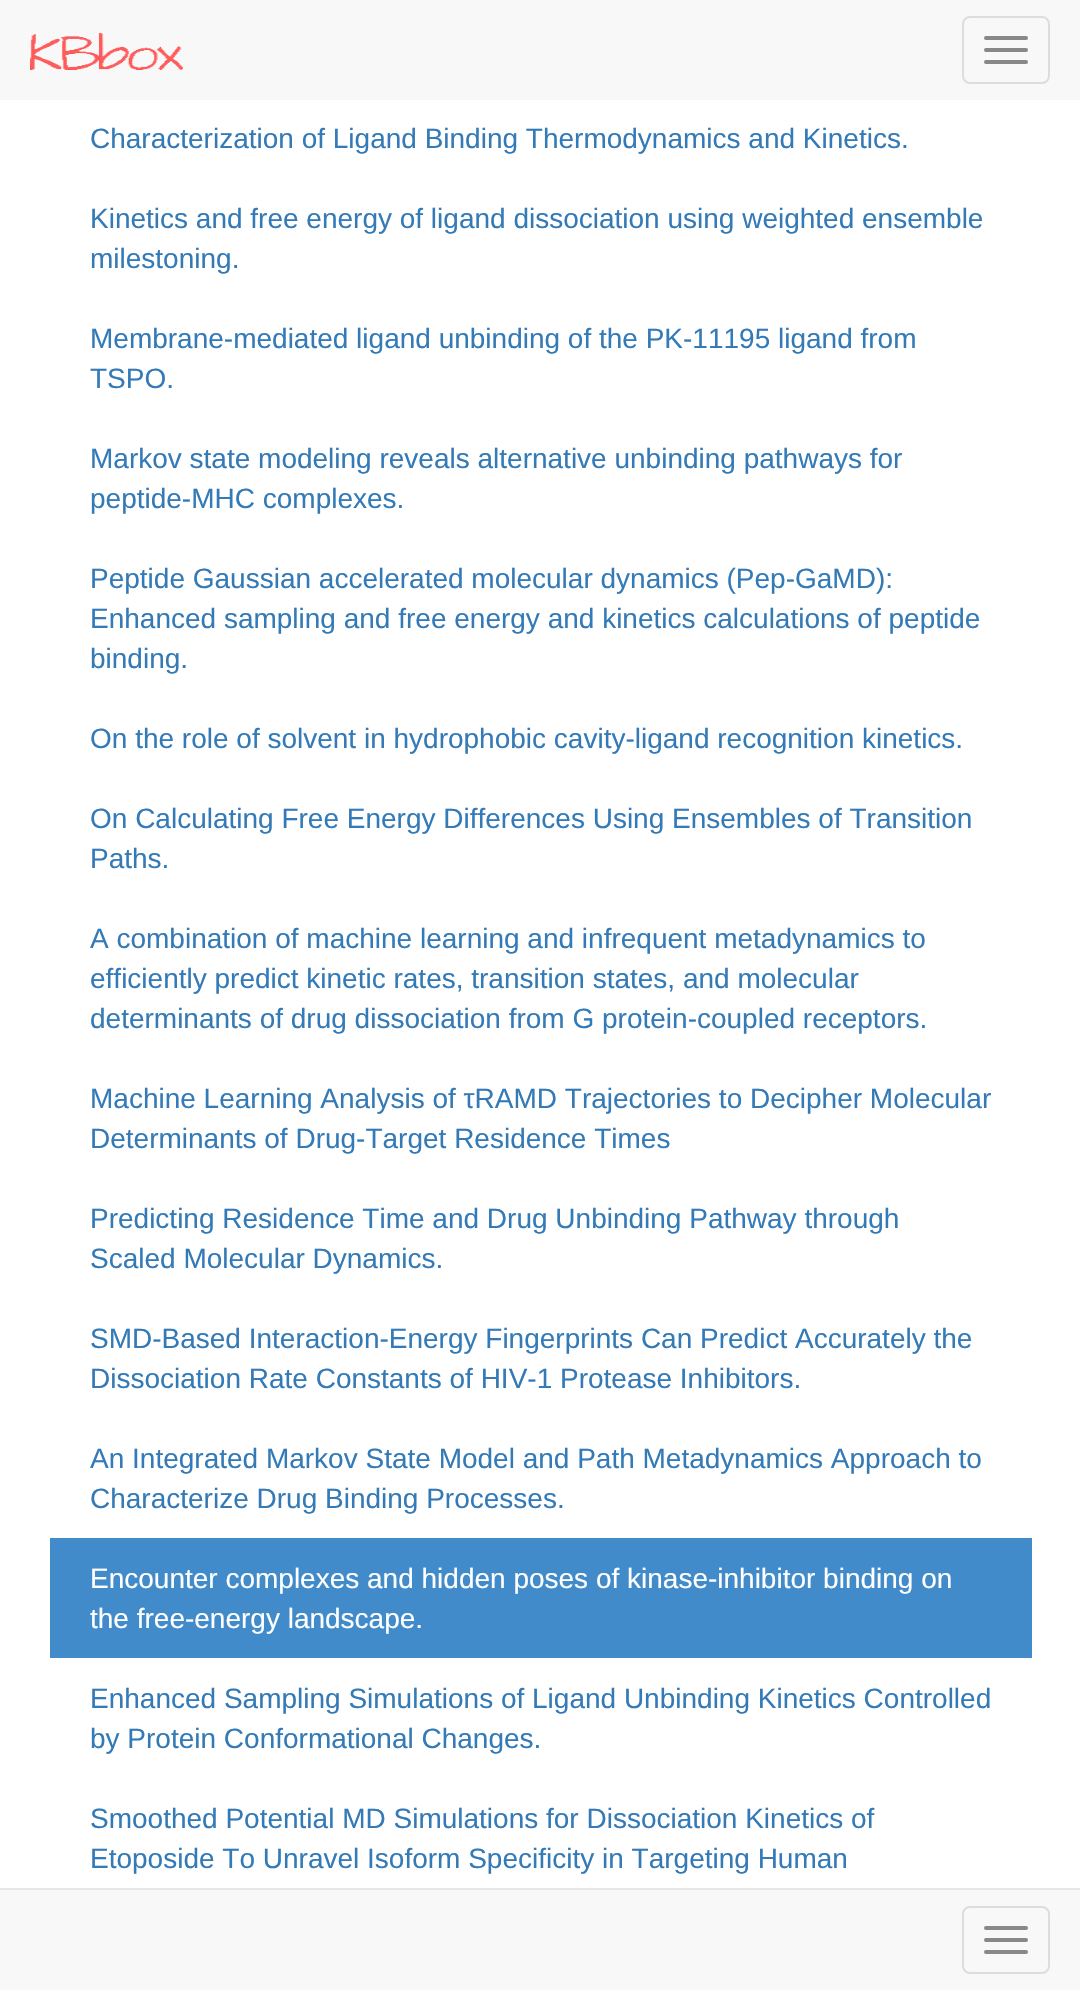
void draw(SkCanvas* canvas) {
    SkPaint paint;
    paint.setAntiAlias(true);
    canvas->clear(0xFFFFFFFF);
    paint.setColor(0xFFF8F8F8);
    canvas->drawRect(SkRect::MakeXYWH(0, 0, 1080, 100), paint);
    canvas->drawImageRect(SkImages::DeferredFromEncodedData(SkData::MakeFromFileName("img1.png")), SkRect::MakeXYWH(30, 33, 153, 37), SkSamplingOptions());
    paint.setStyle(SkPaint::kStroke_Style);
    paint.setStrokeWidth(2);
    paint.setColor(0xFFDDDDDD);
    canvas->drawRoundRect(SkRect::MakeXYWH(963, 17, 86, 66), 7, 7, paint);
    paint.setStyle(SkPaint::kFill_Style);
    paint.setColor(0xFF888888);
    canvas->drawRoundRect(SkRect::MakeXYWH(984, 36, 44, 4), 2, 2, paint);
    canvas->drawRoundRect(SkRect::MakeXYWH(984, 48, 44, 4), 2, 2, paint);
    canvas->drawRoundRect(SkRect::MakeXYWH(984, 60, 44, 4), 2, 2, paint);
    SkFont font1(fontMgr->matchFamilyStyle("Liberation Sans", SkFontStyle::Normal()), 28);
    font1.setSubpixel(true);
    paint.setColor(0xFF337AB7);
    canvas->drawString("Characterization of Ligand Binding Thermodynamics and Kinetics.", 90, 148, font1, paint);
    canvas->drawString("Kinetics and free energy of ligand dissociation using weighted ensemble", 90, 228, font1, paint);
    canvas->drawString("milestoning.", 90, 268, font1, paint);
    canvas->drawString("Membrane-mediated ligand unbinding of the PK-11195 ligand from", 90, 348, font1, paint);
    canvas->drawString("TSPO.", 90, 388, font1, paint);
    canvas->drawString("Markov state modeling reveals alternative unbinding pathways for", 90, 468, font1, paint);
    canvas->drawString("peptide-MHC complexes.", 90, 508, font1, paint);
    canvas->drawString("Peptide Gaussian accelerated molecular dynamics (Pep-GaMD):", 90, 588, font1, paint);
    canvas->drawString("Enhanced sampling and free energy and kinetics calculations of peptide", 90, 628, font1, paint);
    canvas->drawString("binding.", 90, 668, font1, paint);
    canvas->drawString("On the role of solvent in hydrophobic cavity-ligand recognition kinetics.", 90, 748, font1, paint);
    canvas->drawString("On Calculating Free Energy Differences Using Ensembles of Transition", 90, 828, font1, paint);
    canvas->drawString("Paths.", 90, 868, font1, paint);
    canvas->drawString("A combination of machine learning and infrequent metadynamics to", 90, 948, font1, paint);
    canvas->drawString("efficiently predict kinetic rates, transition states, and molecular", 90, 988, font1, paint);
    canvas->drawString("determinants of drug dissociation from G protein-coupled receptors.", 90, 1028, font1, paint);
    canvas->drawString("Machine Learning Analysis of τRAMD Trajectories to Decipher Molecular", 90, 1108, font1, paint);
    canvas->drawString("Determinants of Drug-Target Residence Times", 90, 1148, font1, paint);
    canvas->drawString("Predicting Residence Time and Drug Unbinding Pathway through", 90, 1228, font1, paint);
    canvas->drawString("Scaled Molecular Dynamics.", 90, 1268, font1, paint);
    canvas->drawString("SMD-Based Interaction-Energy Fingerprints Can Predict Accurately the", 90, 1348, font1, paint);
    canvas->drawString("Dissociation Rate Constants of HIV-1 Protease Inhibitors.", 90, 1388, font1, paint);
    canvas->drawString("An Integrated Markov State Model and Path Metadynamics Approach to", 90, 1468, font1, paint);
    canvas->drawString("Characterize Drug Binding Processes.", 90, 1508, font1, paint);
    paint.setColor(0xFF428BCA);
    canvas->drawRect(SkRect::MakeXYWH(50, 1538, 982, 120), paint);
    paint.setColor(0xFFFFFFFF);
    canvas->drawString("Encounter complexes and hidden poses of kinase-inhibitor binding on", 90, 1588, font1, paint);
    canvas->drawString("the free-energy landscape.", 90, 1628, font1, paint);
    paint.setColor(0xFF337AB7);
    canvas->drawString("Enhanced Sampling Simulations of Ligand Unbinding Kinetics Controlled", 90, 1708, font1, paint);
    canvas->drawString("by Protein Conformational Changes.", 90, 1748, font1, paint);
    canvas->drawString("Smoothed Potential MD Simulations for Dissociation Kinetics of", 90, 1828, font1, paint);
    canvas->drawString("Etoposide To Unravel Isoform Specificity in Targeting Human", 90, 1868, font1, paint);
    paint.setColor(0xFFF8F8F8);
    canvas->drawRect(SkRect::MakeXYWH(0, 1890, 1080, 100), paint);
    paint.setColor(0xFFE7E7E7);
    canvas->drawRect(SkRect::MakeXYWH(0, 1888, 1080, 2), paint);
    paint.setStyle(SkPaint::kStroke_Style);
    paint.setColor(0xFFDDDDDD);
    canvas->drawRoundRect(SkRect::MakeXYWH(963, 1907, 86, 66), 7, 7, paint);
    paint.setStyle(SkPaint::kFill_Style);
    paint.setColor(0xFF888888);
    canvas->drawRoundRect(SkRect::MakeXYWH(984, 1926, 44, 4), 2, 2, paint);
    canvas->drawRoundRect(SkRect::MakeXYWH(984, 1938, 44, 4), 2, 2, paint);
    canvas->drawRoundRect(SkRect::MakeXYWH(984, 1950, 44, 4), 2, 2, paint);
}
